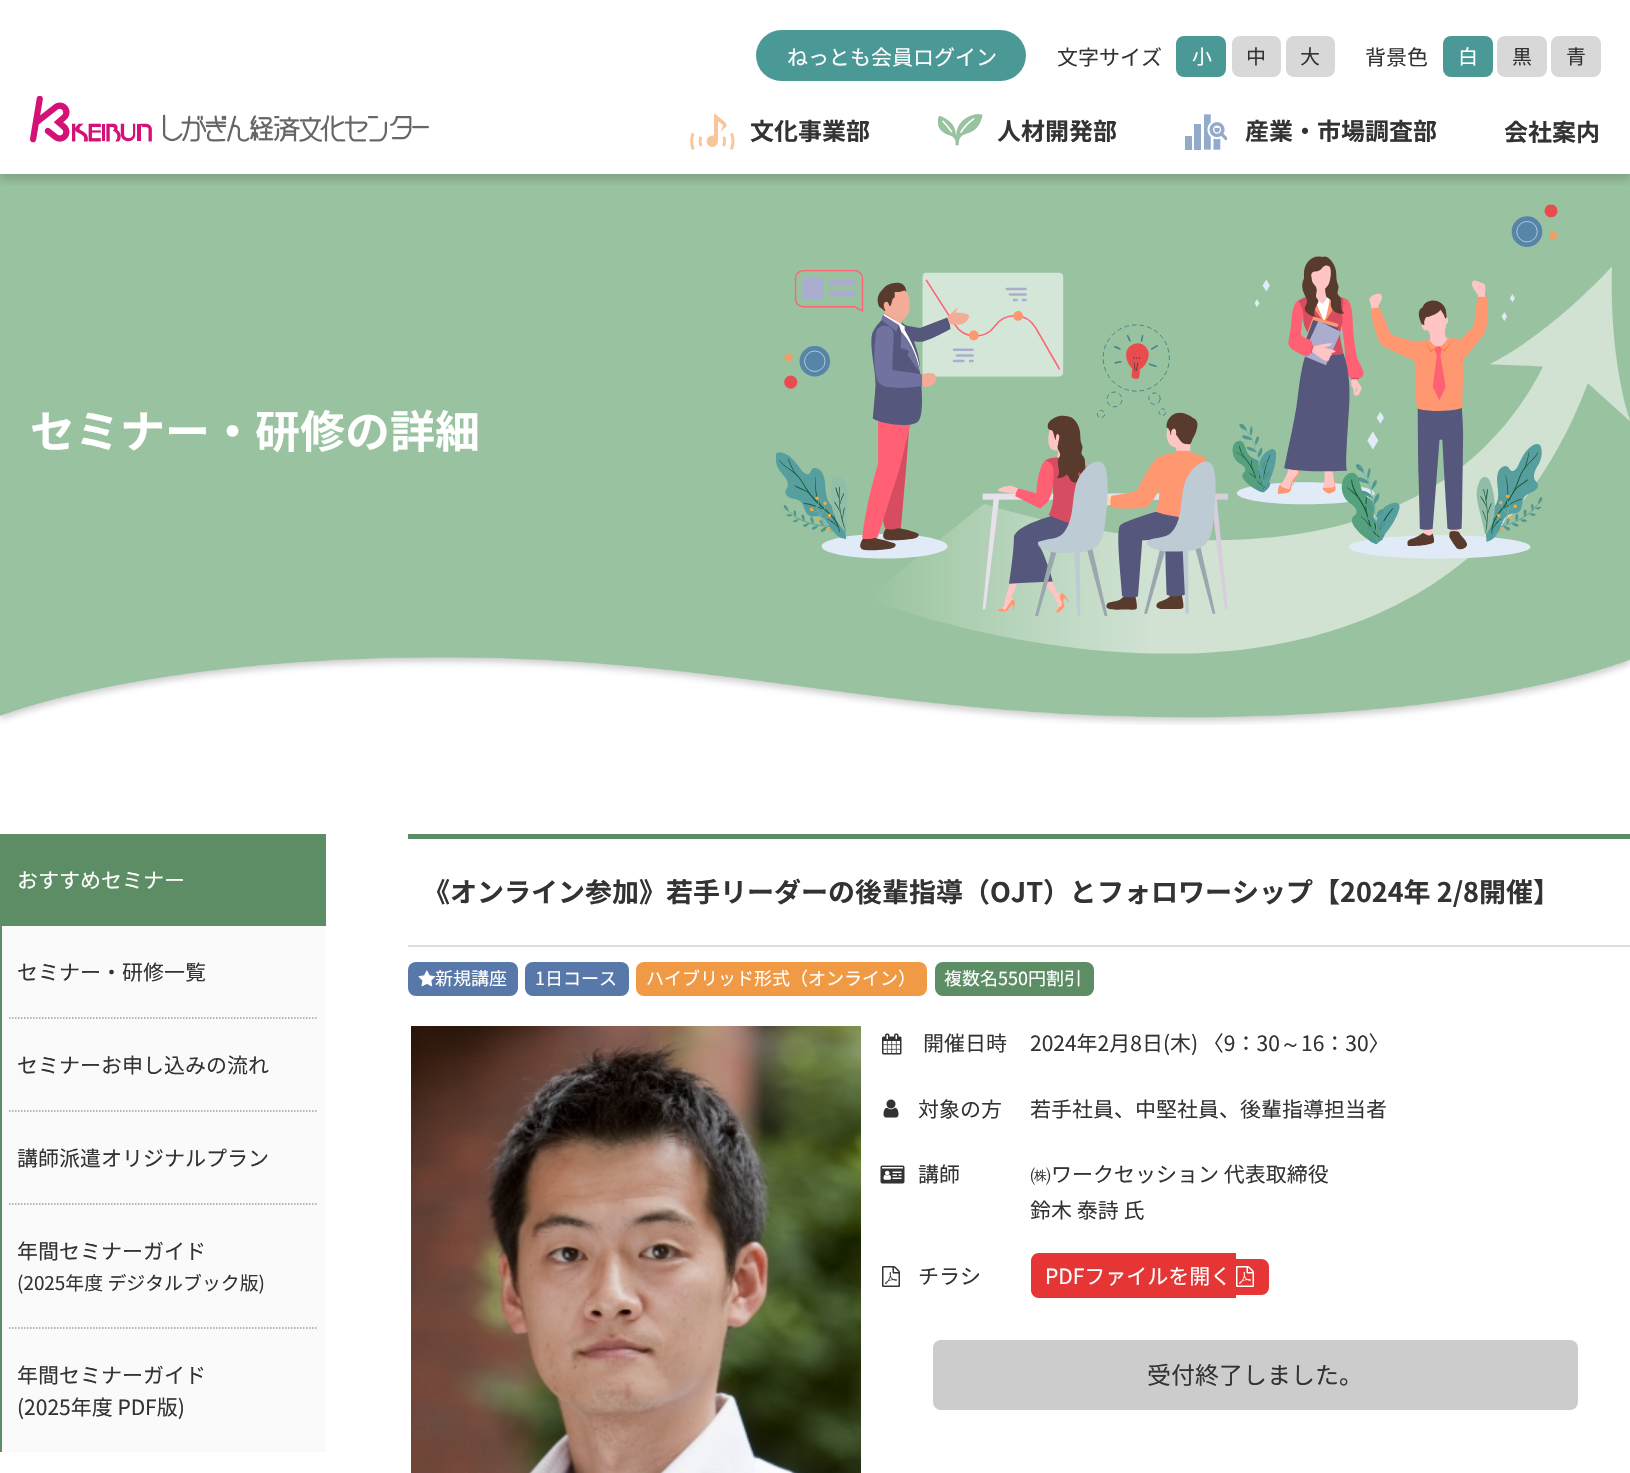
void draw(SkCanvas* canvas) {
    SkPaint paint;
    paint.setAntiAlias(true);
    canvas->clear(0xFFFFFFFF);
    canvas->drawImageRect(SkImages::DeferredFromEncodedData(SkData::MakeFromFileName("img5.png")), SkRect::MakeXYWH(0, 174, 1630, 551), SkSamplingOptions());
    canvas->save();
    canvas->clipRect(SkRect::MakeXYWH(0, 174, 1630, 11));
    paint.setColor(0x29000000);
    paint.setMaskFilter(SkMaskFilter::MakeBlur(kNormal_SkBlurStyle, 4.5f));
    canvas->drawRect(SkRect::MakeXYWH(0, 87, 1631, 93), paint);
    paint.setMaskFilter(nullptr);
    canvas->restore();
    paint.setColor(0xFF4A9996);
    canvas->drawRoundRect(SkRect::MakeXYWH(756, 30, 270, 51), 25.5f, 25.5f, paint);
    SkFont font1(fontMgr->matchFamilyStyle("Noto Sans JP", SkFontStyle::Normal()), 21);
    font1.setSubpixel(true);
    paint.setColor(0xFFFFFFFF);
    canvas->drawString("ねっとも会員ログイン", 787, 65, font1, paint);
    paint.setColor(0xFF333333);
    canvas->drawString("文字サイズ", 1057, 65, font1, paint);
    paint.setColor(0xFF4A9996);
    canvas->drawRoundRect(SkRect::MakeXYWH(1176, 36, 50, 41), 8, 8, paint);
    SkFont font2(fontMgr->matchFamilyStyle("Noto Sans JP", SkFontStyle::Normal()), 20);
    font2.setSubpixel(true);
    paint.setColor(0xFFFFFFFF);
    canvas->drawString("小", 1192, 64, font2, paint);
    paint.setColor(0xFFD8D8D8);
    canvas->drawRoundRect(SkRect::MakeXYWH(1232, 36, 49, 41), 8, 8, paint);
    paint.setColor(0xFF333333);
    canvas->drawString("中", 1246, 64, font2, paint);
    paint.setColor(0xFFD8D8D8);
    canvas->drawRoundRect(SkRect::MakeXYWH(1286, 36, 49, 41), 8, 8, paint);
    paint.setColor(0xFF333333);
    canvas->drawString("大", 1300, 64, font2, paint);
    canvas->drawString("背景色", 1365, 65, font1, paint);
    paint.setColor(0xFF4A9996);
    canvas->drawRoundRect(SkRect::MakeXYWH(1443, 36, 50, 41), 8, 8, paint);
    paint.setColor(0xFFFFFFFF);
    canvas->drawString("白", 1458, 64, font2, paint);
    paint.setColor(0xFFD8D8D8);
    canvas->drawRoundRect(SkRect::MakeXYWH(1497, 36, 50, 41), 8, 8, paint);
    paint.setColor(0xFF333333);
    canvas->drawString("黒", 1512, 64, font2, paint);
    paint.setColor(0xFFD8D8D8);
    canvas->drawRoundRect(SkRect::MakeXYWH(1551, 36, 50, 41), 8, 8, paint);
    paint.setColor(0xFF333333);
    canvas->drawString("青", 1566, 64, font2, paint);
    canvas->drawImageRect(SkImages::DeferredFromEncodedData(SkData::MakeFromFileName("img1.png")), SkRect::MakeXYWH(30, 96, 399, 47), SkSamplingOptions());
    canvas->drawImageRect(SkImages::DeferredFromEncodedData(SkData::MakeFromFileName("img2.png")), SkRect::MakeXYWH(690, 114, 45, 36), SkSamplingOptions());
    SkFont font3(fontMgr->matchFamilyStyle("Noto Sans JP", SkFontStyle::Bold()), 24);
    font3.setSubpixel(true);
    canvas->drawString("文化事業部", 750, 140, font3, paint);
    canvas->drawImageRect(SkImages::DeferredFromEncodedData(SkData::MakeFromFileName("img3.png")), SkRect::MakeXYWH(938, 114, 45, 32), SkSamplingOptions());
    canvas->drawString("人材開発部", 997, 140, font3, paint);
    canvas->drawImageRect(SkImages::DeferredFromEncodedData(SkData::MakeFromFileName("img4.png")), SkRect::MakeXYWH(1185, 114, 42, 36), SkSamplingOptions());
    canvas->drawString("産業・市場調査部", 1245, 140, font3, paint);
    canvas->drawString("会社案内", 1504, 141, font3, paint);
    SkFont font4(fontMgr->matchFamilyStyle("Noto Sans JP", SkFontStyle::Bold()), 45);
    font4.setSubpixel(true);
    paint.setColor(0xFFFFFFFF);
    canvas->drawString("セミナー・研修の詳細", 30, 448, font4, paint);
    canvas->drawImageRect(SkImages::DeferredFromEncodedData(SkData::MakeFromFileName("img6.png")), SkRect::MakeXYWH(776, 204, 854, 450), SkSamplingOptions());
    paint.setColor(0xFFFAFAFA);
    canvas->drawRect(SkRect::MakeXYWH(2, 926, 324, 526), paint);
    paint.setColor(0xFF5C8D64);
    canvas->drawRect(SkRect::MakeXYWH(0, 834, 2, 618), paint);
    canvas->drawRect(SkRect::MakeXYWH(2, 834, 324, 92), paint);
    paint.setColor(0xFFFFFFFF);
    canvas->drawString("おすすめセミナー", 17, 888, font1, paint);
    paint.setStyle(SkPaint::kStroke_Style);
    paint.setStrokeWidth(1.5f);
    paint.setColor(0xFFA49D96);
    paint.setPathEffect(SkDashPathEffect::Make({{1.5f, 1.5f}}, 0));
    canvas->drawPath(SkPathBuilder().moveTo(9, 1018).lineTo(318, 1018).detach(), paint);
    paint.setPathEffect(nullptr);
    paint.setStyle(SkPaint::kFill_Style);
    paint.setColor(0xFF333333);
    canvas->drawString("セミナー・研修一覧", 17, 980, font1, paint);
    paint.setStyle(SkPaint::kStroke_Style);
    paint.setColor(0xFFA49D96);
    paint.setPathEffect(SkDashPathEffect::Make({{1.5f, 1.5f}}, 0));
    canvas->drawPath(SkPathBuilder().moveTo(9, 1111).lineTo(318, 1111).detach(), paint);
    paint.setPathEffect(nullptr);
    paint.setStyle(SkPaint::kFill_Style);
    paint.setColor(0xFF333333);
    canvas->drawString("セミナーお申し込みの流れ", 17, 1073, font1, paint);
    paint.setStyle(SkPaint::kStroke_Style);
    paint.setColor(0xFFA49D96);
    paint.setPathEffect(SkDashPathEffect::Make({{1.5f, 1.5f}}, 0));
    canvas->drawPath(SkPathBuilder().moveTo(9, 1204).lineTo(318, 1204).detach(), paint);
    paint.setPathEffect(nullptr);
    paint.setStyle(SkPaint::kFill_Style);
    paint.setColor(0xFF333333);
    canvas->drawString("講師派遣オリジナルプラン", 17, 1166, font1, paint);
    paint.setStyle(SkPaint::kStroke_Style);
    paint.setColor(0xFFA49D96);
    paint.setPathEffect(SkDashPathEffect::Make({{1.5f, 1.5f}}, 0));
    canvas->drawPath(SkPathBuilder().moveTo(9, 1328).lineTo(318, 1328).detach(), paint);
    paint.setPathEffect(nullptr);
    paint.setStyle(SkPaint::kFill_Style);
    paint.setColor(0xFF333333);
    canvas->drawString("年間セミナーガイド", 17, 1259, font1, paint);
    SkFont font5(fontMgr->matchFamilyStyle("Noto Sans JP", SkFontStyle::Normal()), 18.9f);
    font5.setSubpixel(true);
    canvas->drawString("(2025年度 デジタルブック版)", 17, 1290, font5, paint);
    canvas->drawString("年間セミナーガイド", 17, 1383, font1, paint);
    canvas->drawString("(2025年度 PDF版)", 17, 1415, font1, paint);
    paint.setColor(0xFF5C8D64);
    canvas->drawRect(SkRect::MakeXYWH(408, 834, 1222, 5), paint);
    paint.setColor(0xFFDEDEDE);
    canvas->drawRect(SkRect::MakeXYWH(408, 945, 1222, 2), paint);
    SkFont font6(fontMgr->matchFamilyStyle("Noto Sans JP", SkFontStyle::Bold()), 27);
    font6.setSubpixel(true);
    paint.setColor(0xFF333333);
    canvas->drawString("《オンライン参加》若手リーダーの後輩指導（OJT）とフォロワーシップ【2024年 2/8開催】", 423, 902, font6, paint);
    paint.setColor(0xFF5778A8);
    canvas->drawRoundRect(SkRect::MakeXYWH(408, 962, 110, 34), 8, 8, paint);
    canvas->drawImageRect(SkImages::DeferredFromEncodedData(SkData::MakeFromFileName("img7.png")), SkRect::MakeXYWH(418, 970, 18, 17), SkSamplingOptions());
    SkFont font7(fontMgr->matchFamilyStyle("Noto Sans JP", SkFontStyle::Normal()), 18);
    font7.setSubpixel(true);
    paint.setColor(0xFFFFFFFF);
    canvas->drawString("新規講座", 435, 985, font7, paint);
    paint.setColor(0xFF5778A8);
    canvas->drawRoundRect(SkRect::MakeXYWH(525, 962, 104, 34), 8, 8, paint);
    paint.setColor(0xFFFFFFFF);
    canvas->drawString("1日コース", 535, 985, font7, paint);
    paint.setColor(0xFFF09A45);
    canvas->drawRoundRect(SkRect::MakeXYWH(636, 962, 291, 34), 8, 8, paint);
    paint.setColor(0xFFFFFFFF);
    canvas->drawString("ハイブリッド形式（オンライン）", 646, 985, font7, paint);
    paint.setColor(0xFF5C8D64);
    canvas->drawRoundRect(SkRect::MakeXYWH(935, 962, 159, 34), 8, 8, paint);
    paint.setColor(0xFFFFFFFF);
    canvas->drawString("複数名550円割引", 944, 985, font7, paint);
    canvas->drawImageRect(SkImages::DeferredFromEncodedData(SkData::MakeFromFileName("img8.png")), SkRect::MakeXYWH(411, 1026, 450, 447), SkSamplingOptions());
    canvas->drawImageRect(SkImages::DeferredFromEncodedData(SkData::MakeFromFileName("img9.png")), SkRect::MakeXYWH(882, 1033, 20, 22), SkSamplingOptions());
    paint.setColor(0xFF333333);
    canvas->drawString("開催日時", 923, 1051, font1, paint);
    canvas->drawString("2024年2月8日(木) 〈9：30", 1030, 1051, font1, paint);
    SkFont font8(fontMgr->matchFamilyStyle("WenQuanYi Zen Hei", SkFontStyle(500, SkFontStyle::kNormal_Width, SkFontStyle::kUpright_Slant)), 21);
    font8.setSubpixel(true);
    canvas->drawString("～", 1280, 1051, font8, paint);
    canvas->drawString("16：30〉", 1301, 1051, font1, paint);
    canvas->drawImageRect(SkImages::DeferredFromEncodedData(SkData::MakeFromFileName("img10.png")), SkRect::MakeXYWH(883, 1099, 16, 19), SkSamplingOptions());
    canvas->drawString("対象の方", 918, 1117, font1, paint);
    canvas->drawString("若手社員、中堅社員、後輩指導担当者", 1030, 1117, font1, paint);
    canvas->drawImageRect(SkImages::DeferredFromEncodedData(SkData::MakeFromFileName("img11.png")), SkRect::MakeXYWH(880, 1165, 25, 19), SkSamplingOptions());
    canvas->drawString("講師", 918, 1182, font1, paint);
    canvas->drawString("㈱", 1030, 1182, font8, paint);
    canvas->drawString("ワークセッション 代表取締役", 1051, 1182, font1, paint);
    canvas->drawString("鈴木 泰詩 氏", 1030, 1218, font1, paint);
    canvas->drawImageRect(SkImages::DeferredFromEncodedData(SkData::MakeFromFileName("img12.png")), SkRect::MakeXYWH(882, 1266, 18, 21), SkSamplingOptions());
    canvas->drawString("チラシ", 918, 1284, font1, paint);
    paint.setColor(0xFFE53535);
    canvas->drawPath(SkPathBuilder().moveTo(1039, 1253).lineTo(1236, 1253).lineTo(1236, 1298).lineTo(1039, 1298).cubicTo(1034.5f, 1298, 1031, 1294.5f, 1031, 1290).lineTo(1031, 1261).cubicTo(1031, 1256.5f, 1034.5f, 1253, 1039, 1253).close().detach(), paint);
    canvas->drawPath(SkPathBuilder().moveTo(1236, 1259).lineTo(1261, 1259).cubicTo(1265.5f, 1259, 1269, 1262.5f, 1269, 1267).lineTo(1269, 1287).cubicTo(1269, 1291.5f, 1265.5f, 1295, 1261, 1295).lineTo(1236, 1295).close().detach(), paint);
    paint.setColor(0xFFFFFFFF);
    canvas->drawString("PDFファイルを開く", 1045, 1284, font1, paint);
    canvas->drawImageRect(SkImages::DeferredFromEncodedData(SkData::MakeFromFileName("img13.png")), SkRect::MakeXYWH(1236, 1266, 18, 21), SkSamplingOptions());
    paint.setColor(0xFFCCCCCC);
    canvas->drawRoundRect(SkRect::MakeXYWH(933, 1340, 645, 70), 8, 8, paint);
    SkFont font9(fontMgr->matchFamilyStyle("Noto Sans JP", SkFontStyle::Normal()), 24);
    font9.setSubpixel(true);
    paint.setColor(0xFF333333);
    canvas->drawString("受付終了しました。", 1147, 1384, font9, paint);
}
